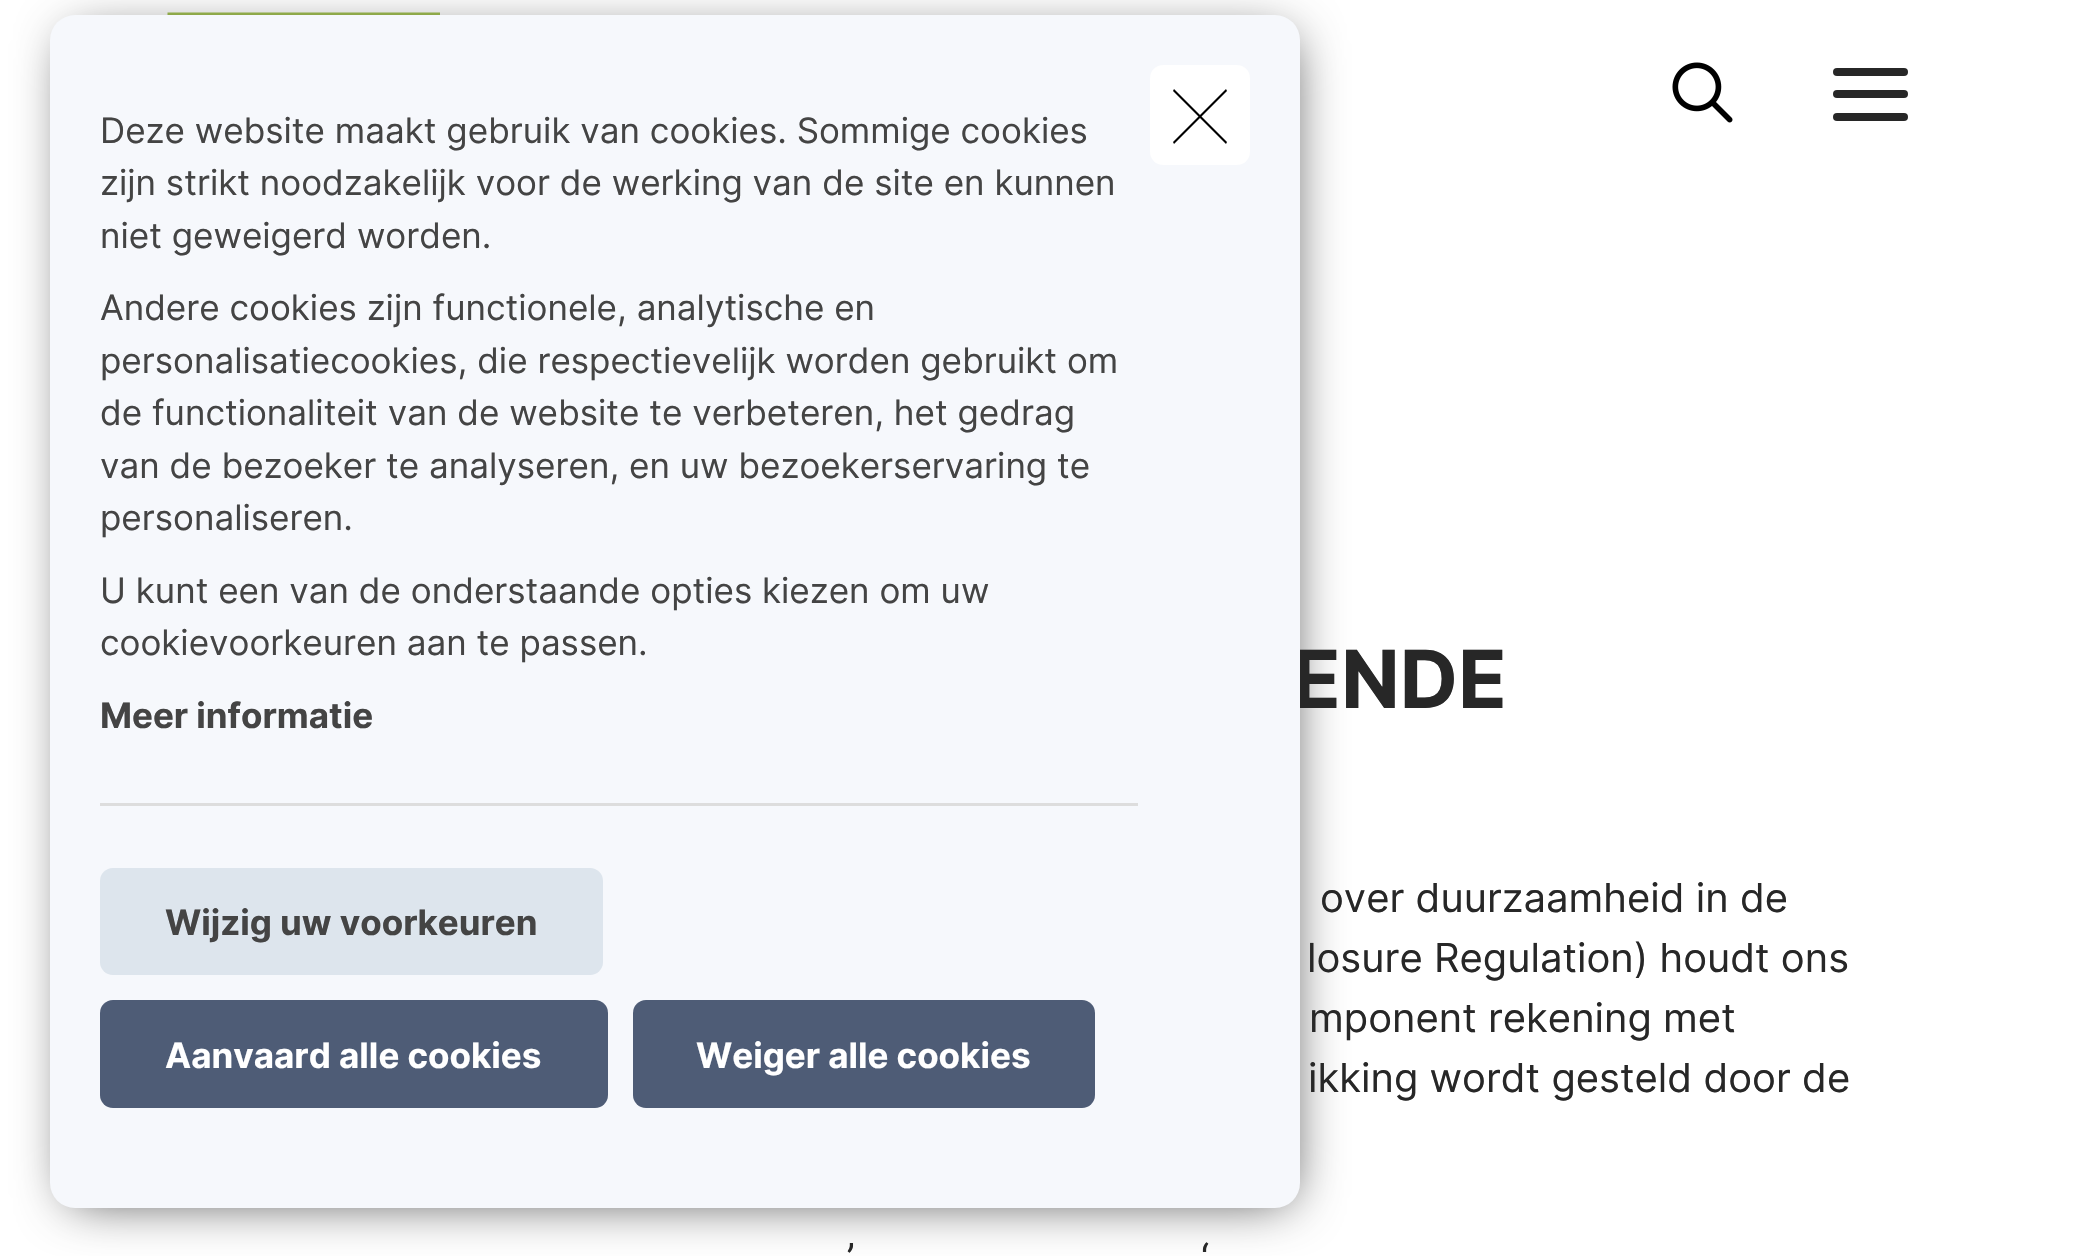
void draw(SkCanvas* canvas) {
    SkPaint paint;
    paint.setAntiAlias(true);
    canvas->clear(0xFFFFFFFF);
    canvas->drawImageRect(SkImages::DeferredFromEncodedData(SkData::MakeFromFileName("img1.png")), SkRect::MakeXYWH(167, 12, 273, 3), SkSamplingOptions());
    canvas->drawImageRect(SkImages::DeferredFromEncodedData(SkData::MakeFromFileName("img2.png")), SkRect::MakeXYWH(1672, 62, 61, 61), SkSamplingOptions());
    paint.setColor(0xFF272727);
    canvas->drawRoundRect(SkRect::MakeXYWH(1833, 90, 75, 8), 4, 4, paint);
    canvas->drawRoundRect(SkRect::MakeXYWH(1833, 68, 75, 8), 4, 4, paint);
    canvas->drawRoundRect(SkRect::MakeXYWH(1833, 113, 75, 8), 4, 4, paint);
    paint.setColor(0xBF000000);
    paint.setMaskFilter(SkMaskFilter::MakeBlur(kNormal_SkBlurStyle, 26));
    canvas->drawRoundRect(SkRect::MakeXYWH(70, 38, 1220, 1162), 10, 10, paint);
    paint.setMaskFilter(nullptr);
    SkFont font1(fontMgr->matchFamilyStyle("Inter", SkFontStyle::Bold()), 80);
    font1.setSubpixel(true);
    paint.setColor(0xFF272727);
    canvas->drawString("ENDE", 1292, 708, font1, paint);
    paint.setColor(0xFFF6F8FC);
    canvas->drawRoundRect(SkRect::MakeXYWH(50, 15, 1250, 1193), 25, 25, paint);
    paint.setColor(0xFFDDDDDD);
    canvas->drawRect(SkRect::MakeXYWH(100, 803, 1038, 3), paint);
    SkFont font2(fontMgr->matchFamilyStyle("Inter", SkFontStyle::Normal()), 35);
    font2.setSubpixel(true);
    paint.setColor(0xFF444444);
    canvas->drawString("Deze website maakt gebruik van cookies. Sommige cookies", 100, 143, font2, paint);
    canvas->drawString("zijn strikt noodzakelijk voor de werking van de site en kunnen", 100, 195, font2, paint);
    canvas->drawString("niet geweigerd worden.", 100, 248, font2, paint);
    canvas->drawString("Andere cookies zijn functionele, analytische en", 100, 320, font2, paint);
    canvas->drawString("personalisatiecookies, die respectievelijk worden gebruikt om", 100, 373, font2, paint);
    canvas->drawString("de functionaliteit van de website te verbeteren, het gedrag", 100, 425, font2, paint);
    canvas->drawString("van de bezoeker te analyseren, en uw bezoekerservaring te", 100, 478, font2, paint);
    canvas->drawString("personaliseren.", 100, 530, font2, paint);
    canvas->drawString("U kunt een van de onderstaande opties kiezen om uw", 100, 603, font2, paint);
    canvas->drawString("cookievoorkeuren aan te passen.", 100, 655, font2, paint);
    SkFont font3(fontMgr->matchFamilyStyle("Inter", SkFontStyle::Bold()), 35);
    font3.setSubpixel(true);
    canvas->drawString("Meer informatie", 100, 728, font3, paint);
    paint.setColor(0xFFDDE5ED);
    canvas->drawRoundRect(SkRect::MakeXYWH(100, 868, 503, 107), 13, 13, paint);
    paint.setColor(0xFF444444);
    canvas->drawString("Wijzig uw voorkeuren", 165, 935, font3, paint);
    paint.setColor(0xFF4E5C76);
    canvas->drawRoundRect(SkRect::MakeXYWH(100, 1000, 508, 108), 13, 13, paint);
    paint.setColor(0xFFFFFFFF);
    canvas->drawString("Aanvaard alle cookies", 165, 1068, font3, paint);
    paint.setColor(0xFF4E5C76);
    canvas->drawRoundRect(SkRect::MakeXYWH(633, 1000, 462, 108), 13, 13, paint);
    paint.setColor(0xFFFFFFFF);
    canvas->drawString("Weiger alle cookies", 696, 1068, font3, paint);
    canvas->drawRoundRect(SkRect::MakeXYWH(1150, 65, 100, 100), 13, 13, paint);
    paint.setColor(0xFF000000);
    canvas->drawPath(SkPathBuilder().moveTo(1174, 89).lineTo(1227, 142).lineTo(1226, 144).lineTo(1173, 91).close().detach(), paint);
    canvas->drawPath(SkPathBuilder().moveTo(1173, 142).lineTo(1226, 89).lineTo(1227, 91).lineTo(1174, 144).close().detach(), paint);
    SkFont font4(fontMgr->matchFamilyStyle("Inter", SkFontStyle::Normal()), 40);
    font4.setSubpixel(true);
    paint.setColor(0xFF272727);
    canvas->drawString("over duurzaamheid in de", 1320, 912, font4, paint);
    canvas->drawString("losure Regulation) houdt ons", 1307, 972, font4, paint);
    canvas->drawString("mponent rekening met", 1309, 1032, font4, paint);
    canvas->drawString("ikking wordt gesteld door de", 1308, 1092, font4, paint);
    canvas->drawString("’", 847, 1272, font4, paint);
    canvas->drawString("‘", 1201, 1272, font4, paint);
}
